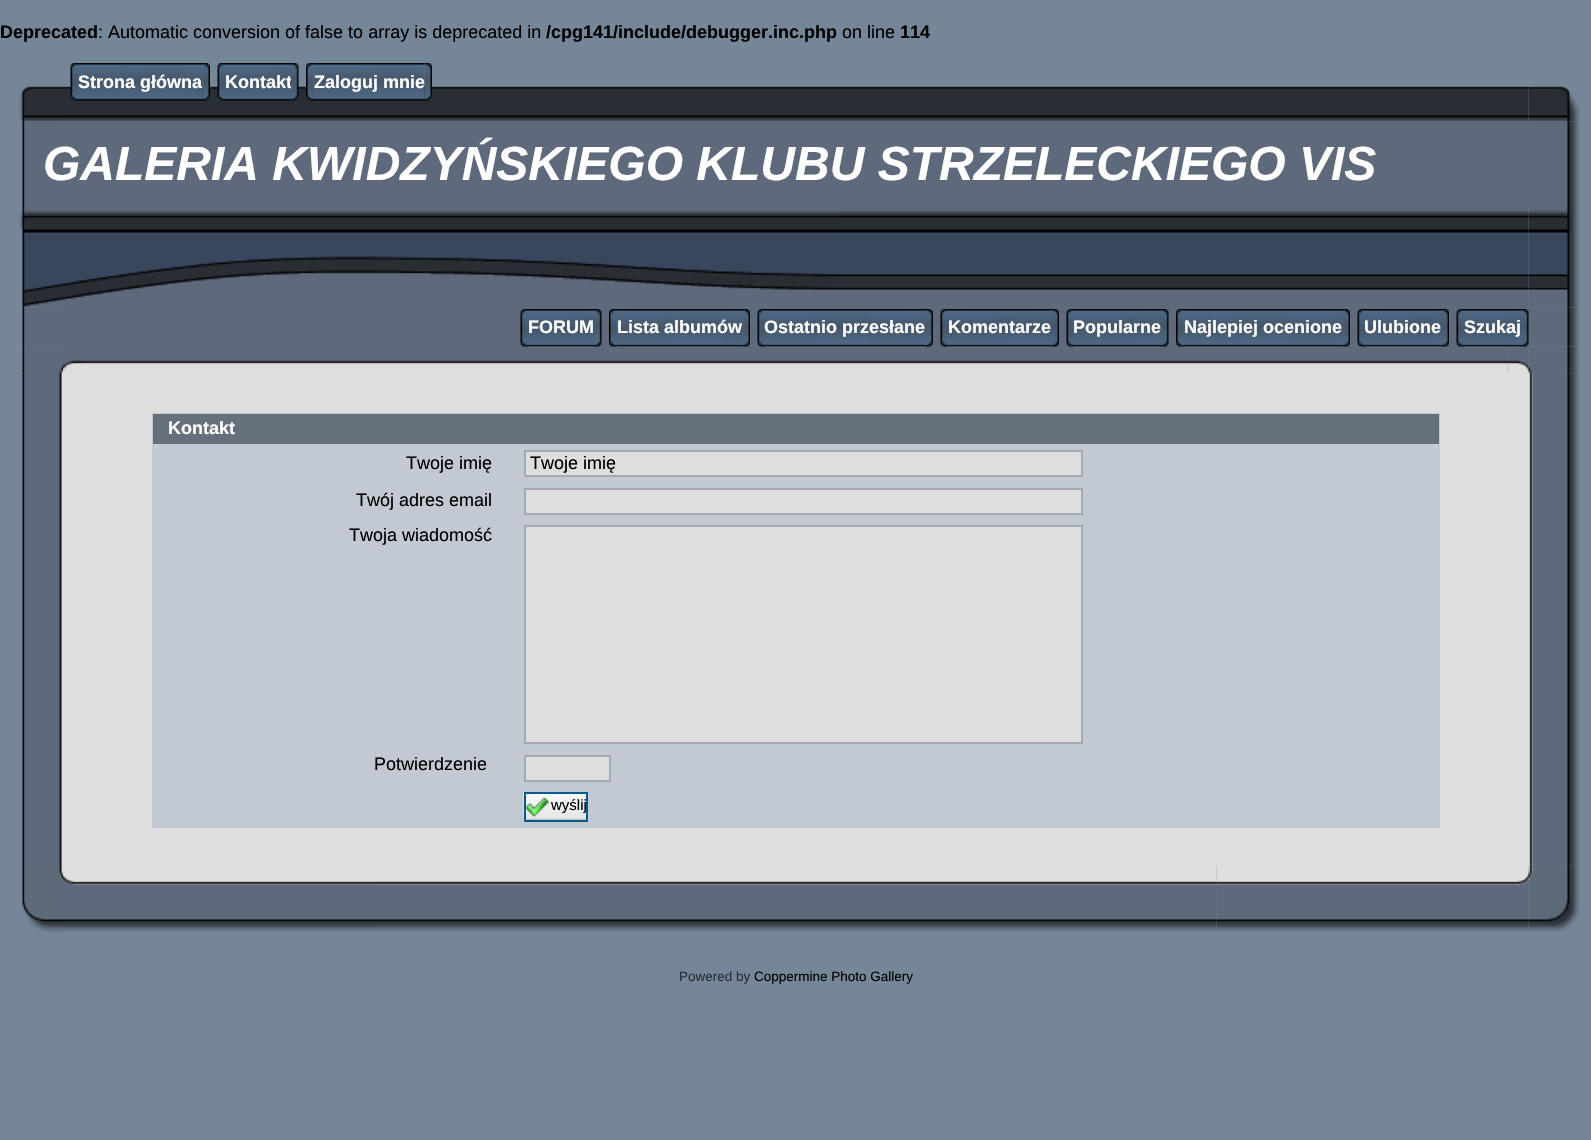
void draw(SkCanvas* canvas) {
    SkPaint paint;
    paint.setAntiAlias(true);
    canvas->clear(0xFF758698);
    SkFont font1(fontMgr->matchFamilyStyle("Liberation Sans", SkFontStyle::Bold()), 18);
    font1.setSubpixel(true);
    paint.setColor(0xFF000000);
    canvas->drawString("Deprecated", 0, 38, font1, paint);
    SkFont font2(fontMgr->matchFamilyStyle("Liberation Sans", SkFontStyle::Normal()), 18);
    font2.setSubpixel(true);
    canvas->drawString(": Automatic conversion of false to array is deprecated in", 98, 38, font2, paint);
    canvas->drawString("/cpg141/include/debugger.inc.php", 546, 38, font1, paint);
    canvas->drawString("on line", 842, 38, font2, paint);
    canvas->drawString("114", 900, 38, font1, paint);
    canvas->drawImageRect(SkImages::DeferredFromEncodedData(SkData::MakeFromFileName("img1.png")), SkRect::MakeXYWH(63, 86, 1466, 35), SkSamplingOptions());
    canvas->drawImageRect(SkImages::DeferredFromEncodedData(SkData::MakeFromFileName("img2.png")), SkRect::MakeXYWH(70, 63, 8, 38), SkSamplingOptions());
    canvas->drawImageRect(SkImages::DeferredFromEncodedData(SkData::MakeFromFileName("img3.png")), SkRect::MakeXYWH(78, 63, 125, 38), SkSamplingOptions());
    paint.setColor(0xFFFFFFFF);
    canvas->drawString("Strona główna", 78, 88, font1, paint);
    canvas->drawImageRect(SkImages::DeferredFromEncodedData(SkData::MakeFromFileName("img4.png")), SkRect::MakeXYWH(202, 63, 8, 38), SkSamplingOptions());
    canvas->drawImageRect(SkImages::DeferredFromEncodedData(SkData::MakeFromFileName("img2.png")), SkRect::MakeXYWH(217, 63, 8, 38), SkSamplingOptions());
    canvas->drawImageRect(SkImages::DeferredFromEncodedData(SkData::MakeFromFileName("img5.png")), SkRect::MakeXYWH(225, 63, 66, 38), SkSamplingOptions());
    canvas->drawString("Kontakt", 225, 88, font1, paint);
    canvas->drawImageRect(SkImages::DeferredFromEncodedData(SkData::MakeFromFileName("img6.png")), SkRect::MakeXYWH(291, 63, 8, 38), SkSamplingOptions());
    canvas->drawImageRect(SkImages::DeferredFromEncodedData(SkData::MakeFromFileName("img8.png")), SkRect::MakeXYWH(313, 63, 112, 38), SkSamplingOptions());
    canvas->drawImageRect(SkImages::DeferredFromEncodedData(SkData::MakeFromFileName("img7.png")), SkRect::MakeXYWH(306, 63, 8, 38), SkSamplingOptions());
    canvas->drawString("Zaloguj mnie", 314, 88, font1, paint);
    canvas->drawImageRect(SkImages::DeferredFromEncodedData(SkData::MakeFromFileName("img9.png")), SkRect::MakeXYWH(424, 63, 8, 38), SkSamplingOptions());
    canvas->drawImageRect(SkImages::DeferredFromEncodedData(SkData::MakeFromFileName("img10.png")), SkRect::MakeXYWH(19, 86, 44, 36), SkSamplingOptions());
    canvas->drawImageRect(SkImages::DeferredFromEncodedData(SkData::MakeFromFileName("img11.png")), SkRect::MakeXYWH(1528, 86, 52, 36), SkSamplingOptions());
    canvas->drawImageRect(SkImages::DeferredFromEncodedData(SkData::MakeFromFileName("img12.png")), SkRect::MakeXYWH(22, 121, 5, 86), SkSamplingOptions());
    paint.setColor(0xFF5E697B);
    canvas->drawRect(SkRect::MakeXYWH(27, 121, 1541, 86), paint);
    SkFont font3(fontMgr->matchFamilyStyle("Liberation Sans", SkFontStyle::BoldItalic()), 48);
    font3.setSubpixel(true);
    paint.setColor(0xFFFFFFFF);
    canvas->drawString("GALERIA KWIDZYŃSKIEGO KLUBU STRZELECKIEGO VIS", 43, 180, font3, paint);
    canvas->drawImageRect(SkImages::DeferredFromEncodedData(SkData::MakeFromFileName("img13.png")), SkRect::MakeXYWH(1567, 121, 13, 86), SkSamplingOptions());
    canvas->drawImageRect(SkImages::DeferredFromEncodedData(SkData::MakeFromFileName("img14.png")), SkRect::MakeXYWH(19, 207, 821, 101), SkSamplingOptions());
    canvas->drawImageRect(SkImages::DeferredFromEncodedData(SkData::MakeFromFileName("img15.png")), SkRect::MakeXYWH(840, 207, 689, 100), SkSamplingOptions());
    canvas->drawImageRect(SkImages::DeferredFromEncodedData(SkData::MakeFromFileName("img16.png")), SkRect::MakeXYWH(1528, 207, 52, 101), SkSamplingOptions());
    canvas->drawImageRect(SkImages::DeferredFromEncodedData(SkData::MakeFromFileName("img17.png")), SkRect::MakeXYWH(22, 307, 41, 40), SkSamplingOptions());
    paint.setColor(0xFF5E697B);
    canvas->drawRect(SkRect::MakeXYWH(63, 307, 1466, 40), paint);
    canvas->drawImageRect(SkImages::DeferredFromEncodedData(SkData::MakeFromFileName("img19.png")), SkRect::MakeXYWH(528, 309, 66, 38), SkSamplingOptions());
    canvas->drawImageRect(SkImages::DeferredFromEncodedData(SkData::MakeFromFileName("img22.png")), SkRect::MakeXYWH(616, 309, 127, 38), SkSamplingOptions());
    canvas->drawImageRect(SkImages::DeferredFromEncodedData(SkData::MakeFromFileName("img24.png")), SkRect::MakeXYWH(765, 309, 161, 38), SkSamplingOptions());
    canvas->drawImageRect(SkImages::DeferredFromEncodedData(SkData::MakeFromFileName("img27.png")), SkRect::MakeXYWH(948, 309, 104, 38), SkSamplingOptions());
    canvas->drawImageRect(SkImages::DeferredFromEncodedData(SkData::MakeFromFileName("img29.png")), SkRect::MakeXYWH(1074, 309, 87, 38), SkSamplingOptions());
    canvas->drawImageRect(SkImages::DeferredFromEncodedData(SkData::MakeFromFileName("img31.png")), SkRect::MakeXYWH(1183, 309, 160, 38), SkSamplingOptions());
    canvas->drawImageRect(SkImages::DeferredFromEncodedData(SkData::MakeFromFileName("img33.png")), SkRect::MakeXYWH(1365, 309, 77, 38), SkSamplingOptions());
    canvas->drawImageRect(SkImages::DeferredFromEncodedData(SkData::MakeFromFileName("img35.png")), SkRect::MakeXYWH(1464, 309, 57, 38), SkSamplingOptions());
    canvas->drawImageRect(SkImages::DeferredFromEncodedData(SkData::MakeFromFileName("img40.png")), SkRect::MakeXYWH(84, 346, 1424, 27), SkSamplingOptions());
    canvas->drawImageRect(SkImages::DeferredFromEncodedData(SkData::MakeFromFileName("img18.png")), SkRect::MakeXYWH(520, 309, 8, 38), SkSamplingOptions());
    paint.setColor(0xFFFFFFFF);
    canvas->drawString("FORUM", 528, 333, font1, paint);
    canvas->drawImageRect(SkImages::DeferredFromEncodedData(SkData::MakeFromFileName("img20.png")), SkRect::MakeXYWH(594, 309, 8, 38), SkSamplingOptions());
    canvas->drawImageRect(SkImages::DeferredFromEncodedData(SkData::MakeFromFileName("img21.png")), SkRect::MakeXYWH(609, 309, 8, 38), SkSamplingOptions());
    canvas->drawString("Lista albumów", 617, 333, font1, paint);
    canvas->drawImageRect(SkImages::DeferredFromEncodedData(SkData::MakeFromFileName("img23.png")), SkRect::MakeXYWH(742, 309, 8, 38), SkSamplingOptions());
    canvas->drawImageRect(SkImages::DeferredFromEncodedData(SkData::MakeFromFileName("img18.png")), SkRect::MakeXYWH(757, 309, 8, 38), SkSamplingOptions());
    canvas->drawString("Ostatnio przesłane", 764, 333, font1, paint);
    canvas->drawImageRect(SkImages::DeferredFromEncodedData(SkData::MakeFromFileName("img25.png")), SkRect::MakeXYWH(925, 309, 8, 38), SkSamplingOptions());
    canvas->drawImageRect(SkImages::DeferredFromEncodedData(SkData::MakeFromFileName("img26.png")), SkRect::MakeXYWH(940, 309, 8, 38), SkSamplingOptions());
    canvas->drawString("Komentarze", 948, 333, font1, paint);
    canvas->drawImageRect(SkImages::DeferredFromEncodedData(SkData::MakeFromFileName("img28.png")), SkRect::MakeXYWH(1051, 309, 8, 38), SkSamplingOptions());
    canvas->drawImageRect(SkImages::DeferredFromEncodedData(SkData::MakeFromFileName("img26.png")), SkRect::MakeXYWH(1066, 309, 8, 38), SkSamplingOptions());
    canvas->drawString("Popularne", 1073, 333, font1, paint);
    canvas->drawImageRect(SkImages::DeferredFromEncodedData(SkData::MakeFromFileName("img20.png")), SkRect::MakeXYWH(1161, 309, 8, 38), SkSamplingOptions());
    canvas->drawImageRect(SkImages::DeferredFromEncodedData(SkData::MakeFromFileName("img30.png")), SkRect::MakeXYWH(1176, 309, 8, 38), SkSamplingOptions());
    canvas->drawString("Najlepiej ocenione", 1184, 333, font1, paint);
    canvas->drawImageRect(SkImages::DeferredFromEncodedData(SkData::MakeFromFileName("img32.png")), SkRect::MakeXYWH(1342, 309, 8, 38), SkSamplingOptions());
    canvas->drawImageRect(SkImages::DeferredFromEncodedData(SkData::MakeFromFileName("img18.png")), SkRect::MakeXYWH(1357, 309, 8, 38), SkSamplingOptions());
    canvas->drawString("Ulubione", 1364, 333, font1, paint);
    canvas->drawImageRect(SkImages::DeferredFromEncodedData(SkData::MakeFromFileName("img34.png")), SkRect::MakeXYWH(1441, 309, 8, 38), SkSamplingOptions());
    canvas->drawImageRect(SkImages::DeferredFromEncodedData(SkData::MakeFromFileName("img18.png")), SkRect::MakeXYWH(1456, 309, 8, 38), SkSamplingOptions());
    canvas->drawString("Szukaj", 1464, 333, font1, paint);
    canvas->drawImageRect(SkImages::DeferredFromEncodedData(SkData::MakeFromFileName("img41.png")), SkRect::MakeXYWH(1507, 346, 22, 27), SkSamplingOptions());
    canvas->drawImageRect(SkImages::DeferredFromEncodedData(SkData::MakeFromFileName("img37.png")), SkRect::MakeXYWH(1529, 307, 51, 40), SkSamplingOptions());
    canvas->drawImageRect(SkImages::DeferredFromEncodedData(SkData::MakeFromFileName("img42.png")), SkRect::MakeXYWH(1528, 346, 52, 28), SkSamplingOptions());
    canvas->drawImageRect(SkImages::DeferredFromEncodedData(SkData::MakeFromFileName("img36.png")), SkRect::MakeXYWH(1521, 309, 8, 38), SkSamplingOptions());
    canvas->drawImageRect(SkImages::DeferredFromEncodedData(SkData::MakeFromFileName("img38.png")), SkRect::MakeXYWH(22, 346, 41, 28), SkSamplingOptions());
    canvas->drawImageRect(SkImages::DeferredFromEncodedData(SkData::MakeFromFileName("img39.png")), SkRect::MakeXYWH(63, 347, 21, 26), SkSamplingOptions());
    canvas->drawImageRect(SkImages::DeferredFromEncodedData(SkData::MakeFromFileName("img43.png")), SkRect::MakeXYWH(22, 373, 41, 493), SkSamplingOptions());
    canvas->drawImageRect(SkImages::DeferredFromEncodedData(SkData::MakeFromFileName("img49.png")), SkRect::MakeXYWH(22, 865, 41, 68), SkSamplingOptions());
    canvas->drawImageRect(SkImages::DeferredFromEncodedData(SkData::MakeFromFileName("img44.png")), SkRect::MakeXYWH(22, 373, 41, 493), SkSamplingOptions());
    paint.setColor(0xFFDEDEDE);
    canvas->drawRect(SkRect::MakeXYWH(63, 373, 1466, 493), paint);
    paint.setColor(0xFFC2C9D3);
    canvas->drawRect(SkRect::MakeXYWH(152, 413, 1288, 415), paint);
    paint.setColor(0xFF66707C);
    canvas->drawRect(SkRect::MakeXYWH(153, 414, 1286, 30), paint);
    paint.setColor(0xFFFFFFFF);
    canvas->drawString("Kontakt", 168, 434, font1, paint);
    paint.setColor(0xFF000000);
    canvas->drawString("Twoje imię", 406, 469, font2, paint);
    paint.setColor(0xFFDEDEDE);
    canvas->drawRect(SkRect::MakeXYWH(525, 451, 557, 25), paint);
    paint.setStyle(SkPaint::kStroke_Style);
    paint.setStrokeWidth(2);
    paint.setColor(0xFFA3AAB4);
    canvas->drawRect(SkRect::MakeXYWH(525, 451, 557, 25), paint);
    paint.setStyle(SkPaint::kFill_Style);
    paint.setColor(0xFF000000);
    canvas->drawString("Twoje imię", 530, 469, font2, paint);
    canvas->drawString("Twój adres email", 356, 506, font2, paint);
    paint.setColor(0xFFDEDEDE);
    canvas->drawRect(SkRect::MakeXYWH(525, 489, 557, 25), paint);
    paint.setStyle(SkPaint::kStroke_Style);
    paint.setColor(0xFFA3AAB4);
    canvas->drawRect(SkRect::MakeXYWH(525, 489, 557, 25), paint);
    paint.setStyle(SkPaint::kFill_Style);
    paint.setColor(0xFF000000);
    canvas->drawString("Twoja wiadomość", 349, 541, font2, paint);
    paint.setColor(0xFFDEDEDE);
    canvas->drawRect(SkRect::MakeXYWH(525, 526, 557, 217), paint);
    paint.setStyle(SkPaint::kStroke_Style);
    paint.setColor(0xFFA3AAB4);
    canvas->drawRect(SkRect::MakeXYWH(525, 526, 557, 217), paint);
    paint.setStyle(SkPaint::kFill_Style);
    paint.setColor(0xFF000000);
    canvas->drawString("Potwierdzenie", 374, 770, font2, paint);
    paint.setColor(0xFFDEDEDE);
    canvas->drawRect(SkRect::MakeXYWH(525, 756, 85, 25), paint);
    paint.setStyle(SkPaint::kStroke_Style);
    paint.setColor(0xFFA3AAB4);
    canvas->drawRect(SkRect::MakeXYWH(525, 756, 85, 25), paint);
    canvas->drawImageRect(SkImages::DeferredFromEncodedData(SkData::MakeFromFileName("img45.png")), SkRect::MakeXYWH(523, 792, 63, 30), SkSamplingOptions());
    paint.setColor(0xFF005D8C);
    canvas->drawRect(SkRect::MakeXYWH(525, 793, 62, 28), paint);
    canvas->drawImageRect(SkImages::DeferredFromEncodedData(SkData::MakeFromFileName("img46.png")), SkRect::MakeXYWH(525, 797, 24, 20), SkSamplingOptions());
    SkFont font4(fontMgr->matchFamilyStyle("Liberation Sans", SkFontStyle::Normal()), 15);
    font4.setSubpixel(true);
    paint.setStyle(SkPaint::kFill_Style);
    paint.setColor(0xFF000000);
    canvas->drawString("wyślij", 551, 810, font4, paint);
    canvas->drawImageRect(SkImages::DeferredFromEncodedData(SkData::MakeFromFileName("img47.png")), SkRect::MakeXYWH(1529, 373, 51, 493), SkSamplingOptions());
    canvas->drawImageRect(SkImages::DeferredFromEncodedData(SkData::MakeFromFileName("img51.png")), SkRect::MakeXYWH(375, 866, 842, 66), SkSamplingOptions());
    canvas->drawImageRect(SkImages::DeferredFromEncodedData(SkData::MakeFromFileName("img52.png")), SkRect::MakeXYWH(1216, 866, 313, 66), SkSamplingOptions());
    canvas->drawImageRect(SkImages::DeferredFromEncodedData(SkData::MakeFromFileName("img53.png")), SkRect::MakeXYWH(1528, 865, 52, 67), SkSamplingOptions());
    canvas->drawImageRect(SkImages::DeferredFromEncodedData(SkData::MakeFromFileName("img48.png")), SkRect::MakeXYWH(1529, 373, 48, 493), SkSamplingOptions());
    canvas->drawImageRect(SkImages::DeferredFromEncodedData(SkData::MakeFromFileName("img50.png")), SkRect::MakeXYWH(63, 866, 312, 66), SkSamplingOptions());
    SkFont font5(fontMgr->matchFamilyStyle("Liberation Sans", SkFontStyle::Normal()), 13.5f);
    font5.setSubpixel(true);
    paint.setColor(0xFF292E34);
    canvas->drawString("Powered by", 679, 981, font5, paint);
    paint.setColor(0xFF000000);
    canvas->drawString("Coppermine Photo Gallery", 754, 981, font5, paint);
}
